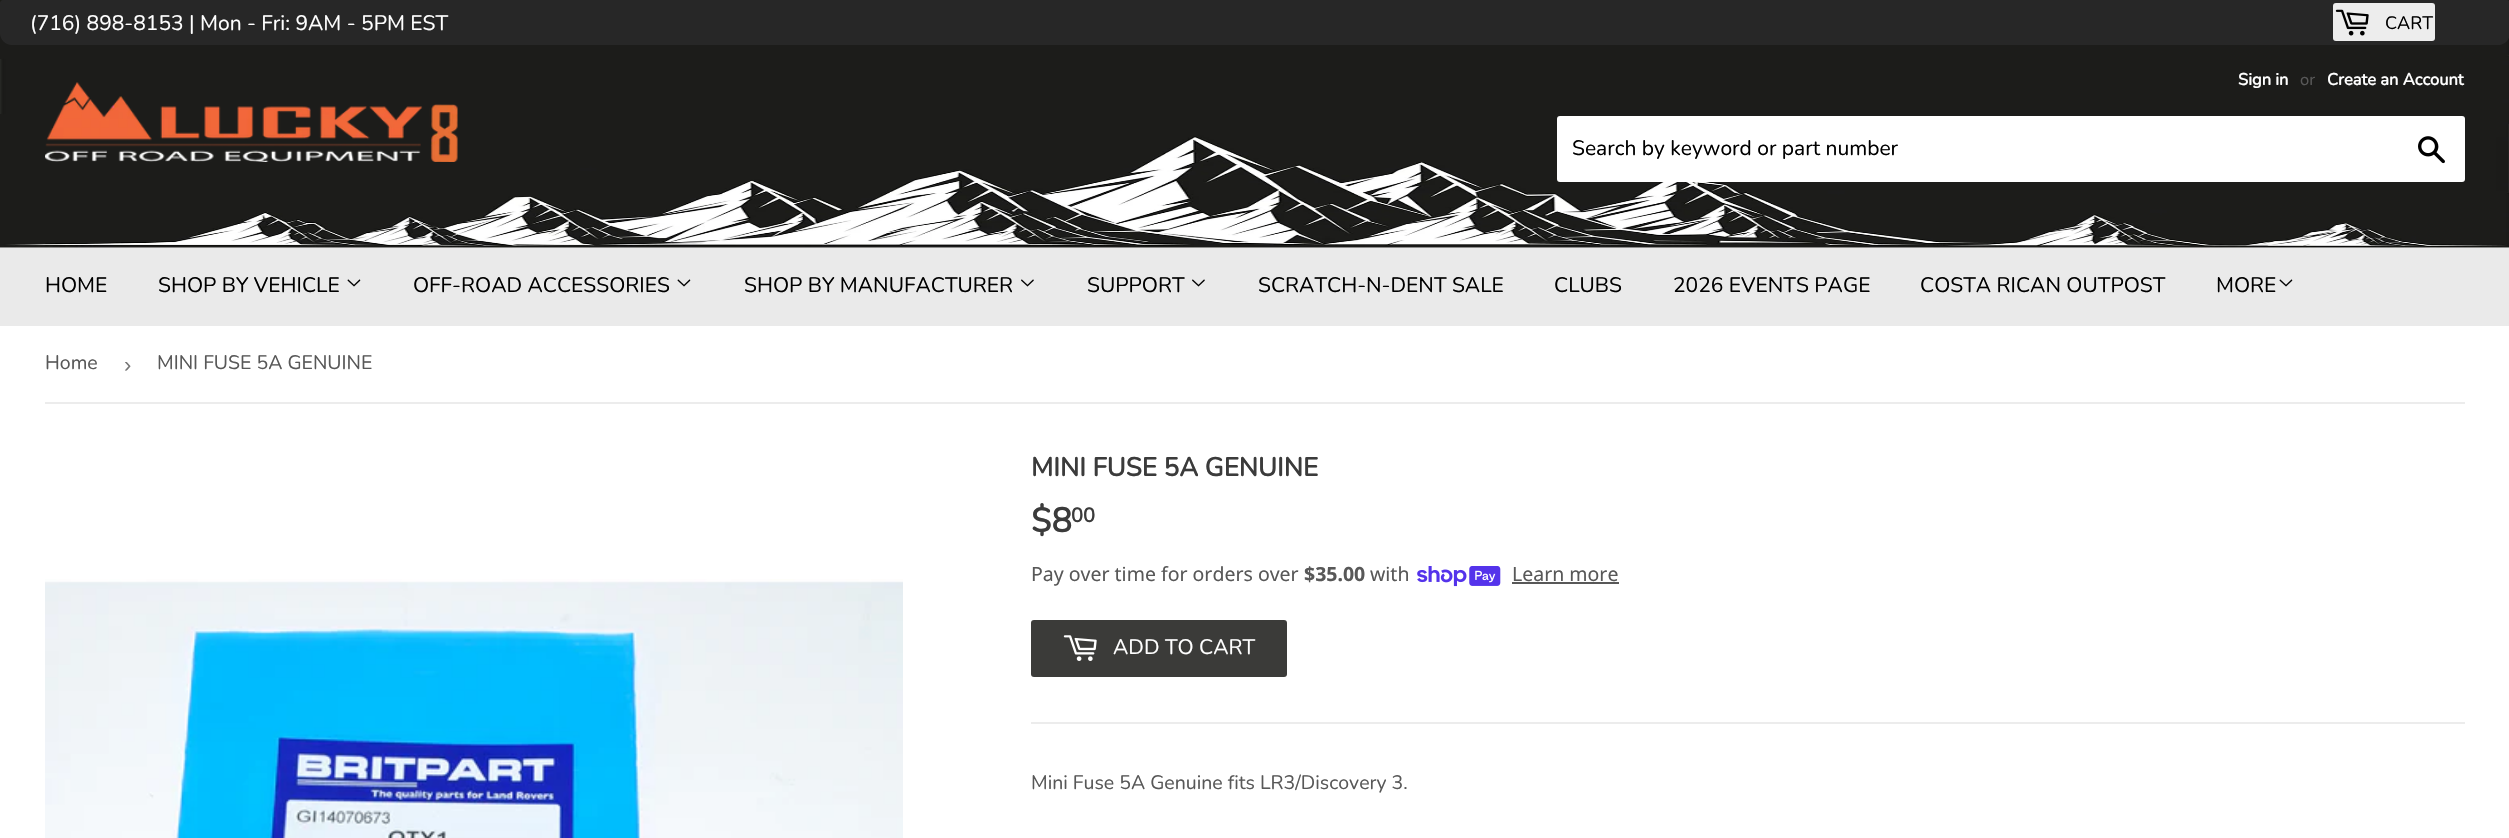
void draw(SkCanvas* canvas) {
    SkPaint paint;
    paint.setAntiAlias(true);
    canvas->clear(0xFFFFFFFF);
    canvas->drawImageRect(SkImages::DeferredFromEncodedData(SkData::MakeFromFileName("img2.png")), SkRect::MakeXYWH(0, 0, 2509, 248), SkSamplingOptions());
    paint.setColor(0xFF272727);
    canvas->drawPath(SkPathBuilder().moveTo(3, 0).lineTo(2507, 0).cubicTo(2508.5f, 0, 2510, 1.5f, 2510, 3).lineTo(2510, 33).cubicTo(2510, 39.5f, 2504.5f, 45, 2498, 45).lineTo(12, 45).cubicTo(5.5f, 45, 0, 39.5f, 0, 33).lineTo(0, 3).cubicTo(0, 1.5f, 1.5f, 0, 3, 0).close().detach(), paint);
    SkFont font1(fontMgr->matchFamilyStyle("Nunito", SkFontStyle(200, SkFontStyle::kNormal_Width, SkFontStyle::kUpright_Slant)), 21);
    font1.setSubpixel(true);
    paint.setColor(0xFFFFFFFF);
    canvas->drawString("(716) 898-8153 | Mon - Fri: 9AM - 5PM EST", 30, 30, font1, paint);
    paint.setColor(0xFFEDEDED);
    canvas->drawRoundRect(SkRect::MakeXYWH(2333, 3, 102, 38), 3, 3, paint);
    canvas->drawImageRect(SkImages::DeferredFromEncodedData(SkData::MakeFromFileName("img1.png")), SkRect::MakeXYWH(2335, 9, 34, 27), SkSamplingOptions());
    SkFont font2(fontMgr->matchFamilyStyle("Nunito", SkFontStyle(200, SkFontStyle::kNormal_Width, SkFontStyle::kUpright_Slant)), 18);
    font2.setSubpixel(true);
    paint.setColor(0xFF000000);
    canvas->drawString("CART", 2385, 29, font2, paint);
    canvas->drawImageRect(SkImages::DeferredFromEncodedData(SkData::MakeFromFileName("img3.png")), SkRect::MakeXYWH(45, 82, 413, 80), SkSamplingOptions());
    SkFont font3(fontMgr->matchFamilyStyle("Nunito", SkFontStyle::Bold()), 16.5f);
    font3.setSubpixel(true);
    paint.setColor(0xFFFFFFFF);
    canvas->drawString("Sign in", 2238, 85, font3, paint);
    SkFont font4(fontMgr->matchFamilyStyle("Nunito", SkFontStyle(200, SkFontStyle::kNormal_Width, SkFontStyle::kUpright_Slant)), 16.5f);
    font4.setSubpixel(true);
    paint.setColor(0xFF585858);
    canvas->drawString("or", 2300, 85, font4, paint);
    paint.setColor(0xFFFFFFFF);
    canvas->drawString("Create an Account", 2327, 85, font3, paint);
    canvas->drawRoundRect(SkRect::MakeXYWH(1557, 116, 908, 66), 3, 3, paint);
    paint.setColor(0xFF000000);
    canvas->drawString("Search by keyword or part number", 1572, 155, font1, paint);
    canvas->drawImageRect(SkImages::DeferredFromEncodedData(SkData::MakeFromFileName("img4.png")), SkRect::MakeXYWH(2418, 136, 27, 28), SkSamplingOptions());
    paint.setColor(0xFFEAEAEA);
    canvas->drawRect(SkRect::MakeXYWH(0, 248, 2509, 78), paint);
    paint.setColor(0xFF000000);
    canvas->drawString("HOME", 45, 292, font1, paint);
    canvas->drawString("SHOP BY VEHICLE", 158, 292, font1, paint);
    canvas->drawImageRect(SkImages::DeferredFromEncodedData(SkData::MakeFromFileName("img5.png")), SkRect::MakeXYWH(347, 279, 14, 8), SkSamplingOptions());
    canvas->drawString("OFF-ROAD ACCESSORIES", 413, 292, font1, paint);
    canvas->drawImageRect(SkImages::DeferredFromEncodedData(SkData::MakeFromFileName("img5.png")), SkRect::MakeXYWH(677, 279, 14, 8), SkSamplingOptions());
    canvas->drawString("SHOP BY MANUFACTURER", 744, 292, font1, paint);
    canvas->drawImageRect(SkImages::DeferredFromEncodedData(SkData::MakeFromFileName("img6.png")), SkRect::MakeXYWH(1021, 279, 13, 8), SkSamplingOptions());
    canvas->drawString("SUPPORT", 1087, 292, font1, paint);
    canvas->drawImageRect(SkImages::DeferredFromEncodedData(SkData::MakeFromFileName("img6.png")), SkRect::MakeXYWH(1192, 279, 13, 8), SkSamplingOptions());
    canvas->drawString("SCRATCH-N-DENT SALE", 1258, 292, font1, paint);
    canvas->drawString("CLUBS", 1554, 292, font1, paint);
    canvas->drawString("2026 EVENTS PAGE", 1673, 292, font1, paint);
    canvas->drawString("COSTA RICAN OUTPOST", 1920, 292, font1, paint);
    canvas->drawString("MORE", 2216, 292, font1, paint);
    canvas->drawImageRect(SkImages::DeferredFromEncodedData(SkData::MakeFromFileName("img5.png")), SkRect::MakeXYWH(2279, 279, 14, 8), SkSamplingOptions());
    paint.setColor(0xFFECECEC);
    canvas->drawRect(SkRect::MakeXYWH(45, 402, 2420, 2), paint);
    SkFont font5(fontMgr->matchFamilyStyle("Nunito", SkFontStyle(200, SkFontStyle::kNormal_Width, SkFontStyle::kUpright_Slant)), 19.5f);
    font5.setSubpixel(true);
    paint.setColor(0xFF585858);
    canvas->drawString("Home", 45, 369, font5, paint);
    SkFont font6(fontMgr->matchFamilyStyle("Liberation Sans", SkFontStyle::Normal()), 22);
    font6.setSubpixel(true);
    paint.setColor(0xFF767676);
    canvas->drawString("›", 124, 372, font6, paint);
    paint.setColor(0xFF585858);
    canvas->drawString("MINI FUSE 5A GENUINE", 157, 369, font5, paint);
    canvas->drawImageRect(SkImages::DeferredFromEncodedData(SkData::MakeFromFileName("img7.png")), SkRect::MakeXYWH(45, 579, 858, 259), SkSamplingOptions());
    SkFont font7(fontMgr->matchFamilyStyle("Nunito", SkFontStyle::Bold()), 26);
    font7.setSubpixel(true);
    paint.setColor(0xFF3B3B3B);
    canvas->drawString("MINI FUSE 5A GENUINE", 1031, 476, font7, paint);
    SkFont font8(fontMgr->matchFamilyStyle("Nunito", SkFontStyle::Bold()), 34);
    font8.setSubpixel(true);
    canvas->drawString("$8", 1031, 532, font8, paint);
    SkFont font9(fontMgr->matchFamilyStyle("Nunito", SkFontStyle::Bold()), 20);
    font9.setSubpixel(true);
    canvas->drawString("00", 1071, 522, font9, paint);
    SkFont font10(fontMgr->matchFamilyStyle("Noto Sans", SkFontStyle::Normal()), 19.5f);
    font10.setSubpixel(true);
    paint.setColor(0xFF585858);
    canvas->drawString("Pay over time for orders over", 1031, 581, font10, paint);
    SkFont font11(fontMgr->matchFamilyStyle("Noto Sans", SkFontStyle::Bold()), 19.5f);
    font11.setSubpixel(true);
    canvas->drawString("$35.00", 1304, 581, font11, paint);
    canvas->drawString("with", 1370, 581, font10, paint);
    canvas->drawImageRect(SkImages::DeferredFromEncodedData(SkData::MakeFromFileName("img8.png")), SkRect::MakeXYWH(1417, 566, 84, 21), SkSamplingOptions());
    canvas->drawString("Learn more", 1512, 581, font10, paint);
    canvas->drawRect(SkRect::MakeXYWH(1512, 582, 107, 2), paint);
    paint.setColor(0xFF3B3B39);
    canvas->drawRoundRect(SkRect::MakeXYWH(1031, 620, 256, 57), 3, 3, paint);
    canvas->drawImageRect(SkImages::DeferredFromEncodedData(SkData::MakeFromFileName("img9.png")), SkRect::MakeXYWH(1063, 635, 34, 26), SkSamplingOptions());
    paint.setColor(0xFFFFFFFF);
    canvas->drawString("ADD TO CART", 1113, 654, font1, paint);
    paint.setColor(0xFFECECEC);
    canvas->drawRect(SkRect::MakeXYWH(1031, 722, 1434, 2), paint);
    paint.setColor(0xFF585858);
    canvas->drawString("Mini Fuse 5A Genuine fits LR3/Discovery 3.", 1031, 789, font5, paint);
}
